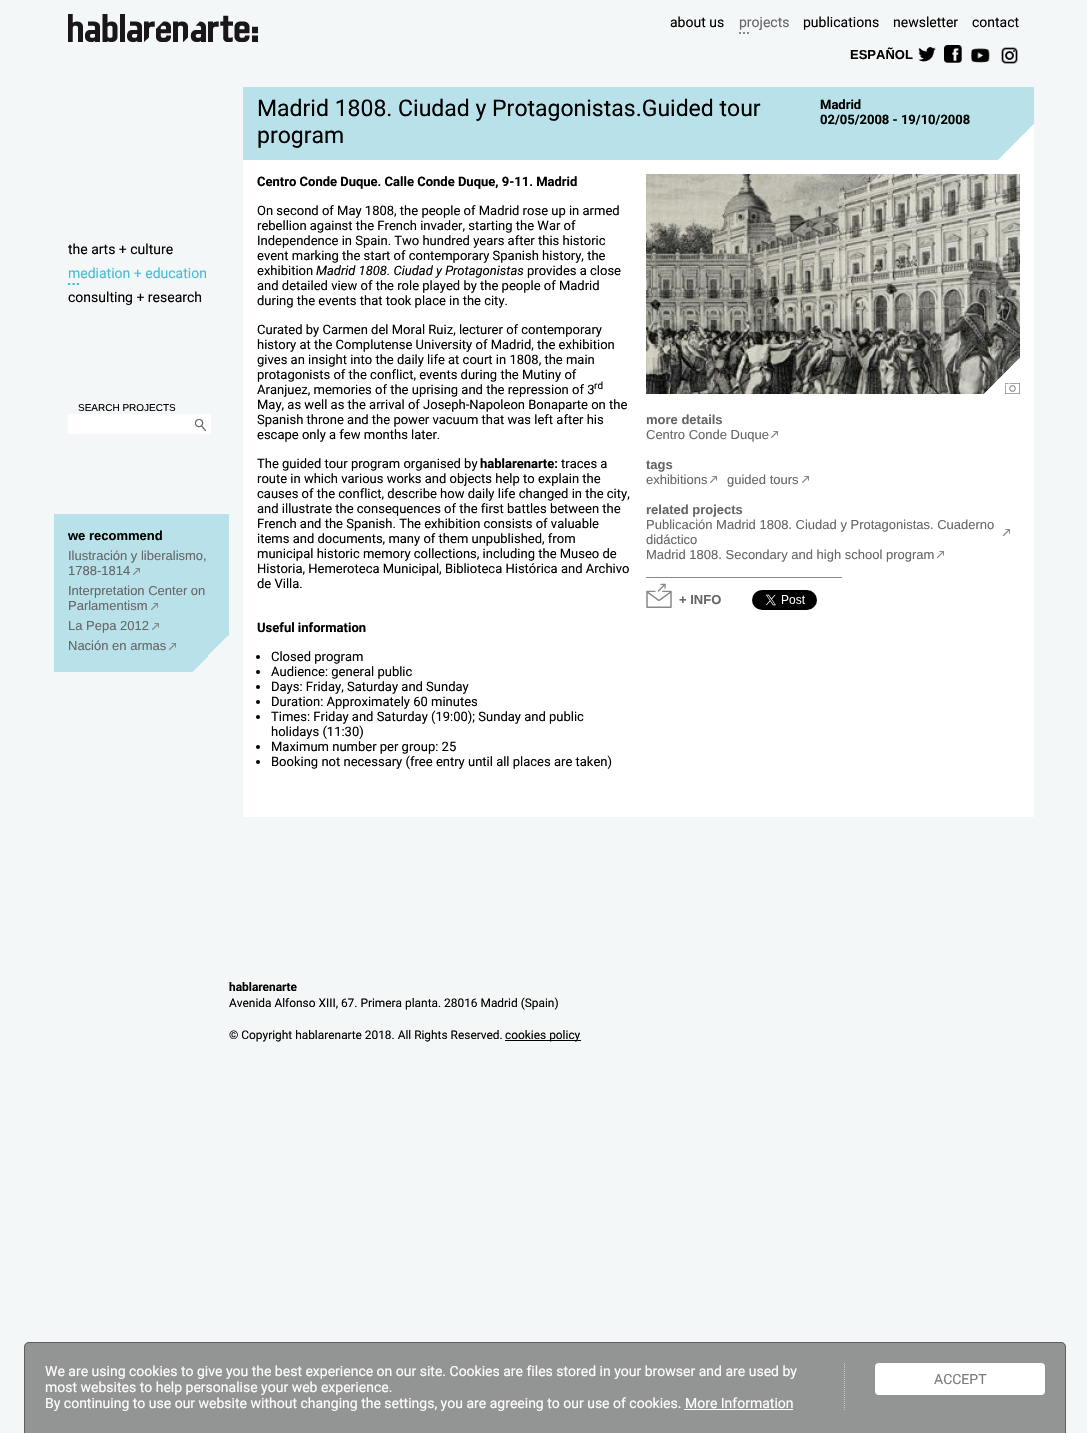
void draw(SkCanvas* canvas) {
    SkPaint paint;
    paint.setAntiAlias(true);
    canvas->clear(0xFFF4F7F7);
    canvas->drawImageRect(SkImages::DeferredFromEncodedData(SkData::MakeFromFileName("img1.png")), SkRect::MakeXYWH(68, 14, 190, 28), SkSamplingOptions());
    SkFont font1(fontMgr->matchFamilyStyle("Roboto", SkFontStyle::Normal()), 14);
    font1.setSubpixel(true);
    paint.setColor(0xFF000000);
    canvas->drawString("about us", 670, 27, font1, paint);
    paint.setColor(0xFF666666);
    canvas->drawString("projects", 739, 27, font1, paint);
    canvas->drawImageRect(SkImages::DeferredFromEncodedData(SkData::MakeFromFileName("img2.png")), SkRect::MakeXYWH(739, 32, 10, 2), SkSamplingOptions());
    paint.setColor(0xFF000000);
    canvas->drawString("publications", 803, 27, font1, paint);
    canvas->drawString("newsletter", 893, 27, font1, paint);
    canvas->drawString("contact", 972, 27, font1, paint);
    SkFont font2(fontMgr->matchFamilyStyle("Liberation Sans", SkFontStyle::Bold()), 13);
    font2.setSubpixel(true);
    canvas->drawString("ESPAÑOL", 850, 59, font2, paint);
    canvas->drawImageRect(SkImages::DeferredFromEncodedData(SkData::MakeFromFileName("img3.png")), SkRect::MakeXYWH(918, 47, 18, 15), SkSamplingOptions());
    canvas->drawImageRect(SkImages::DeferredFromEncodedData(SkData::MakeFromFileName("img4.png")), SkRect::MakeXYWH(944, 45, 18, 18), SkSamplingOptions());
    canvas->drawImageRect(SkImages::DeferredFromEncodedData(SkData::MakeFromFileName("img5.png")), SkRect::MakeXYWH(970, 48, 20, 15), SkSamplingOptions());
    canvas->drawImageRect(SkImages::DeferredFromEncodedData(SkData::MakeFromFileName("img6.png")), SkRect::MakeXYWH(1001, 47, 17, 17), SkSamplingOptions());
    canvas->drawString("the arts + culture", 68, 254, font1, paint);
    canvas->drawImageRect(SkImages::DeferredFromEncodedData(SkData::MakeFromFileName("img7.png")), SkRect::MakeXYWH(68, 283, 11, 2), SkSamplingOptions());
    paint.setColor(0xFF46BED3);
    canvas->drawString("mediation + education", 68, 278, font1, paint);
    paint.setColor(0xFF000000);
    canvas->drawString("consulting + research", 68, 302, font1, paint);
    SkFont font3(fontMgr->matchFamilyStyle("Liberation Sans", SkFontStyle::Normal()), 10);
    font3.setSubpixel(true);
    canvas->drawString("SEARCH PROJECTS", 78, 411, font3, paint);
    paint.setColor(0xFFFFFFFF);
    canvas->drawRect(SkRect::MakeXYWH(68, 414, 143, 20), paint);
    canvas->drawImageRect(SkImages::DeferredFromEncodedData(SkData::MakeFromFileName("img8.png")), SkRect::MakeXYWH(195, 419, 11, 12), SkSamplingOptions());
    paint.setColor(0xFFB9E1E9);
    canvas->drawRect(SkRect::MakeXYWH(54, 514, 175, 158), paint);
    canvas->drawImageRect(SkImages::DeferredFromEncodedData(SkData::MakeFromFileName("img9.png")), SkRect::MakeXYWH(193, 636, 36, 36), SkSamplingOptions());
    paint.setColor(0xFF000000);
    canvas->drawString("we recommend", 68, 540, font2, paint);
    SkFont font4(fontMgr->matchFamilyStyle("Liberation Sans", SkFontStyle::Normal()), 13);
    font4.setSubpixel(true);
    paint.setColor(0xFF666666);
    canvas->drawString("Ilustración y liberalismo,", 68, 560, font4, paint);
    canvas->drawString("1788-1814", 68, 575, font4, paint);
    canvas->drawImageRect(SkImages::DeferredFromEncodedData(SkData::MakeFromFileName("img10.png")), SkRect::MakeXYWH(133, 568, 7, 7), SkSamplingOptions());
    canvas->drawString("Interpretation Center on", 68, 595, font4, paint);
    canvas->drawString("Parlamentism", 68, 610, font4, paint);
    canvas->drawImageRect(SkImages::DeferredFromEncodedData(SkData::MakeFromFileName("img10.png")), SkRect::MakeXYWH(151, 603, 7, 7), SkSamplingOptions());
    canvas->drawString("La Pepa 2012", 68, 630, font4, paint);
    canvas->drawImageRect(SkImages::DeferredFromEncodedData(SkData::MakeFromFileName("img10.png")), SkRect::MakeXYWH(152, 623, 7, 7), SkSamplingOptions());
    canvas->drawString("Nación en armas", 68, 650, font4, paint);
    canvas->drawImageRect(SkImages::DeferredFromEncodedData(SkData::MakeFromFileName("img10.png")), SkRect::MakeXYWH(169, 643, 7, 7), SkSamplingOptions());
    paint.setColor(0xFFFFFFFF);
    canvas->drawRect(SkRect::MakeXYWH(243, 160, 791, 657), paint);
    paint.setColor(0xFFB9E1E9);
    canvas->drawRect(SkRect::MakeXYWH(243, 87, 791, 73), paint);
    SkFont font5(fontMgr->matchFamilyStyle("Roboto", SkFontStyle::Normal()), 23);
    font5.setSubpixel(true);
    paint.setColor(0xFF000000);
    canvas->drawString("Madrid 1808. Ciudad y Protagonistas.Guided tour", 257, 116, font5, paint);
    canvas->drawString("program", 257, 143, font5, paint);
    canvas->drawImageRect(SkImages::DeferredFromEncodedData(SkData::MakeFromFileName("img11.png")), SkRect::MakeXYWH(998, 124, 36, 36), SkSamplingOptions());
    SkFont font6(fontMgr->matchFamilyStyle("Roboto", SkFontStyle::Bold()), 13);
    font6.setSubpixel(true);
    canvas->drawString("Madrid", 820, 109, font6, paint);
    canvas->drawString("02/05/2008 - 19/10/2008", 820, 124, font6, paint);
    canvas->drawString("Centro Conde Duque. Calle Conde Duque, 9-11. Madrid", 257, 186, font6, paint);
    SkFont font7(fontMgr->matchFamilyStyle("Roboto", SkFontStyle::Normal()), 13);
    font7.setSubpixel(true);
    canvas->drawString("On second of May 1808, the people of Madrid rose up in armed", 257, 215, font7, paint);
    canvas->drawString("rebellion against the French invader, starting the War of", 257, 230, font7, paint);
    canvas->drawString("Independence in Spain. Two hundred years after this historic", 257, 245, font7, paint);
    canvas->drawString("event marking the start of contemporary Spanish history, the", 257, 260, font7, paint);
    canvas->drawString("exhibition", 257, 275, font7, paint);
    SkFont font8(fontMgr->matchFamilyStyle("Roboto", SkFontStyle::Italic()), 13);
    font8.setSubpixel(true);
    canvas->drawString("Madrid 1808. Ciudad y Protagonistas", 316, 275, font8, paint);
    canvas->drawString("provides a close", 527, 275, font7, paint);
    canvas->drawString("and detailed view of the role played by the people of Madrid", 257, 290, font7, paint);
    canvas->drawString("during the events that took place in the city.", 257, 305, font7, paint);
    canvas->drawString("Curated by Carmen del Moral Ruiz, lecturer of contemporary", 257, 334, font7, paint);
    canvas->drawString("history at the Complutense University of Madrid, the exhibition", 257, 349, font7, paint);
    canvas->drawString("gives an insight into the daily life at court in 1808, the main", 257, 364, font7, paint);
    canvas->drawString("protagonists of the conflict, events during the Mutiny of", 257, 379, font7, paint);
    canvas->drawString("Aranjuez, memories of the uprising and the repression of 3", 257, 394, font7, paint);
    SkFont font9(fontMgr->matchFamilyStyle("Roboto", SkFontStyle::Normal()), 10);
    font9.setSubpixel(true);
    canvas->drawString("rd", 594, 389, font9, paint);
    canvas->drawString("May, as well as the arrival of Joseph-Napoleon Bonaparte on the", 257, 409, font7, paint);
    canvas->drawString("Spanish throne and the power vacuum that was left after his", 257, 424, font7, paint);
    canvas->drawString("escape only a few months later.", 257, 439, font7, paint);
    canvas->drawString("The guided tour program organised by", 257, 468, font7, paint);
    canvas->drawString("hablarenarte:", 480, 468, font6, paint);
    canvas->drawString("traces a", 561, 468, font7, paint);
    canvas->drawString("route in which various works and objects help to explain the", 257, 483, font7, paint);
    canvas->drawString("causes of the conflict, describe how daily life changed in the city,", 257, 498, font7, paint);
    canvas->drawString("and illustrate the consequences of the first battles between the", 257, 513, font7, paint);
    canvas->drawString("French and the Spanish. The exhibition consists of valuable", 257, 528, font7, paint);
    canvas->drawString("items and documents, many of them unpublished, from", 257, 543, font7, paint);
    canvas->drawString("municipal historic memory collections, including the Museo de", 257, 558, font7, paint);
    canvas->drawString("Historia, Hemeroteca Municipal, Biblioteca Histórica and Archivo", 257, 573, font7, paint);
    canvas->drawString("de Villa.", 257, 588, font7, paint);
    canvas->drawString("Useful information", 257, 632, font6, paint);
    canvas->drawCircle(258, 657, 2, paint);
    canvas->drawString("Closed program", 271, 661, font7, paint);
    canvas->drawCircle(258, 672, 2, paint);
    canvas->drawString("Audience: general public", 271, 676, font7, paint);
    canvas->drawCircle(258, 687, 2, paint);
    canvas->drawString("Days: Friday, Saturday and Sunday", 271, 691, font7, paint);
    canvas->drawCircle(258, 702, 2, paint);
    canvas->drawString("Duration: Approximately 60 minutes", 271, 706, font7, paint);
    canvas->drawCircle(258, 717, 2, paint);
    canvas->drawString("Times: Friday and Saturday (19:00); Sunday and public", 271, 721, font7, paint);
    canvas->drawString("holidays (11:30)", 271, 736, font7, paint);
    canvas->drawCircle(258, 747, 2, paint);
    canvas->drawString("Maximum number per group: 25", 271, 751, font7, paint);
    canvas->drawCircle(258, 762, 2, paint);
    canvas->drawString("Booking not necessary (free entry until all places are taken)", 271, 766, font7, paint);
    canvas->drawImageRect(SkImages::DeferredFromEncodedData(SkData::MakeFromFileName("img12.png")), SkRect::MakeXYWH(646, 174, 374, 220), SkSamplingOptions());
    canvas->drawImageRect(SkImages::DeferredFromEncodedData(SkData::MakeFromFileName("img13.png")), SkRect::MakeXYWH(984, 358, 36, 36), SkSamplingOptions());
    paint.setColor(0xFF666666);
    canvas->drawString("more details", 646, 424, font2, paint);
    canvas->drawImageRect(SkImages::DeferredFromEncodedData(SkData::MakeFromFileName("img14.png")), SkRect::MakeXYWH(771, 431, 7, 7), SkSamplingOptions());
    canvas->drawString("Centro Conde Duque", 646, 439, font4, paint);
    canvas->drawString("tags", 646, 469, font2, paint);
    canvas->drawImageRect(SkImages::DeferredFromEncodedData(SkData::MakeFromFileName("img14.png")), SkRect::MakeXYWH(710, 476, 7, 7), SkSamplingOptions());
    canvas->drawString("exhibitions", 646, 484, font4, paint);
    canvas->drawImageRect(SkImages::DeferredFromEncodedData(SkData::MakeFromFileName("img14.png")), SkRect::MakeXYWH(802, 476, 7, 7), SkSamplingOptions());
    canvas->drawString("guided tours", 727, 484, font4, paint);
    canvas->drawString("related projects", 646, 514, font2, paint);
    canvas->drawImageRect(SkImages::DeferredFromEncodedData(SkData::MakeFromFileName("img14.png")), SkRect::MakeXYWH(1003, 529, 7, 7), SkSamplingOptions());
    canvas->drawString("Publicación Madrid 1808. Ciudad y Protagonistas. Cuaderno", 646, 529, font4, paint);
    canvas->drawString("didáctico", 646, 544, font4, paint);
    canvas->drawImageRect(SkImages::DeferredFromEncodedData(SkData::MakeFromFileName("img14.png")), SkRect::MakeXYWH(937, 551, 7, 7), SkSamplingOptions());
    canvas->drawString("Madrid 1808. Secondary and high school program", 646, 559, font4, paint);
    paint.setColor(0xFF888888);
    canvas->drawRect(SkRect::MakeXYWH(646, 577, 196, 1), paint);
    canvas->drawImageRect(SkImages::DeferredFromEncodedData(SkData::MakeFromFileName("img15.png")), SkRect::MakeXYWH(646, 583, 26, 25), SkSamplingOptions());
    paint.setColor(0xFF666666);
    canvas->drawString("+ INFO", 679, 604, font2, paint);
    canvas->drawImageRect(SkImages::DeferredFromEncodedData(SkData::MakeFromFileName("img16.png")), SkRect::MakeXYWH(752, 590, 65, 20), SkSamplingOptions());
    SkFont font10(fontMgr->matchFamilyStyle("Roboto", SkFontStyle::Bold()), 11.9f);
    font10.setSubpixel(true);
    paint.setColor(0xFF000000);
    canvas->drawString("hablarenarte", 229, 991, font10, paint);
    SkFont font11(fontMgr->matchFamilyStyle("Roboto", SkFontStyle::Normal()), 11.9f);
    font11.setSubpixel(true);
    canvas->drawString("Avenida Alfonso XIII, 67. Primera planta. 28016 Madrid (Spain)", 229, 1007, font11, paint);
    canvas->drawString("© Copyright hablarenarte 2018. All Rights Reserved.", 229, 1039, font11, paint);
    canvas->drawRect(SkRect::MakeXYWH(505, 1040, 76, 1), paint);
    canvas->drawString("cookies policy", 505, 1039, font11, paint);
    paint.setColor(0xFF939494);
    canvas->drawRoundRect(SkRect::MakeXYWH(24, 1342, 1042, 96), 5, 5, paint);
    paint.setStyle(SkPaint::kStroke_Style);
    paint.setStrokeWidth(1);
    paint.setColor(0xCC505050);
    canvas->drawRoundRect(SkRect::MakeXYWH(24.5f, 1342.5f, 1041, 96), 4.5f, 4.5f, paint);
    paint.setColor(0xFFC9CACA);
    paint.setPathEffect(SkDashPathEffect::Make({{1, 1}}, 0));
    canvas->drawPath(SkPathBuilder().moveTo(844.5f, 1363).lineTo(844.5f, 1411).detach(), paint);
    paint.setPathEffect(nullptr);
    paint.setStyle(SkPaint::kFill_Style);
    paint.setColor(0xFFFFFFFF);
    canvas->drawString("We are using cookies to give you the best experience on our site. Cookies are files stored in your browser and are used by", 45, 1376, font1, paint);
    canvas->drawString("most websites to help personalise your web experience.", 45, 1392, font1, paint);
    canvas->drawString("By continuing to use our website without changing the settings, you are agreeing to our use of cookies. More Information", 45, 1408, font1, paint);
    canvas->drawRect(SkRect::MakeXYWH(684, 1409, 109, 1), paint);
    canvas->drawRoundRect(SkRect::MakeXYWH(875, 1363, 170, 32), 4, 4, paint);
    paint.setColor(0xFF7B7B7B);
    canvas->drawString("ACCEPT", 934, 1384, font1, paint);
}
